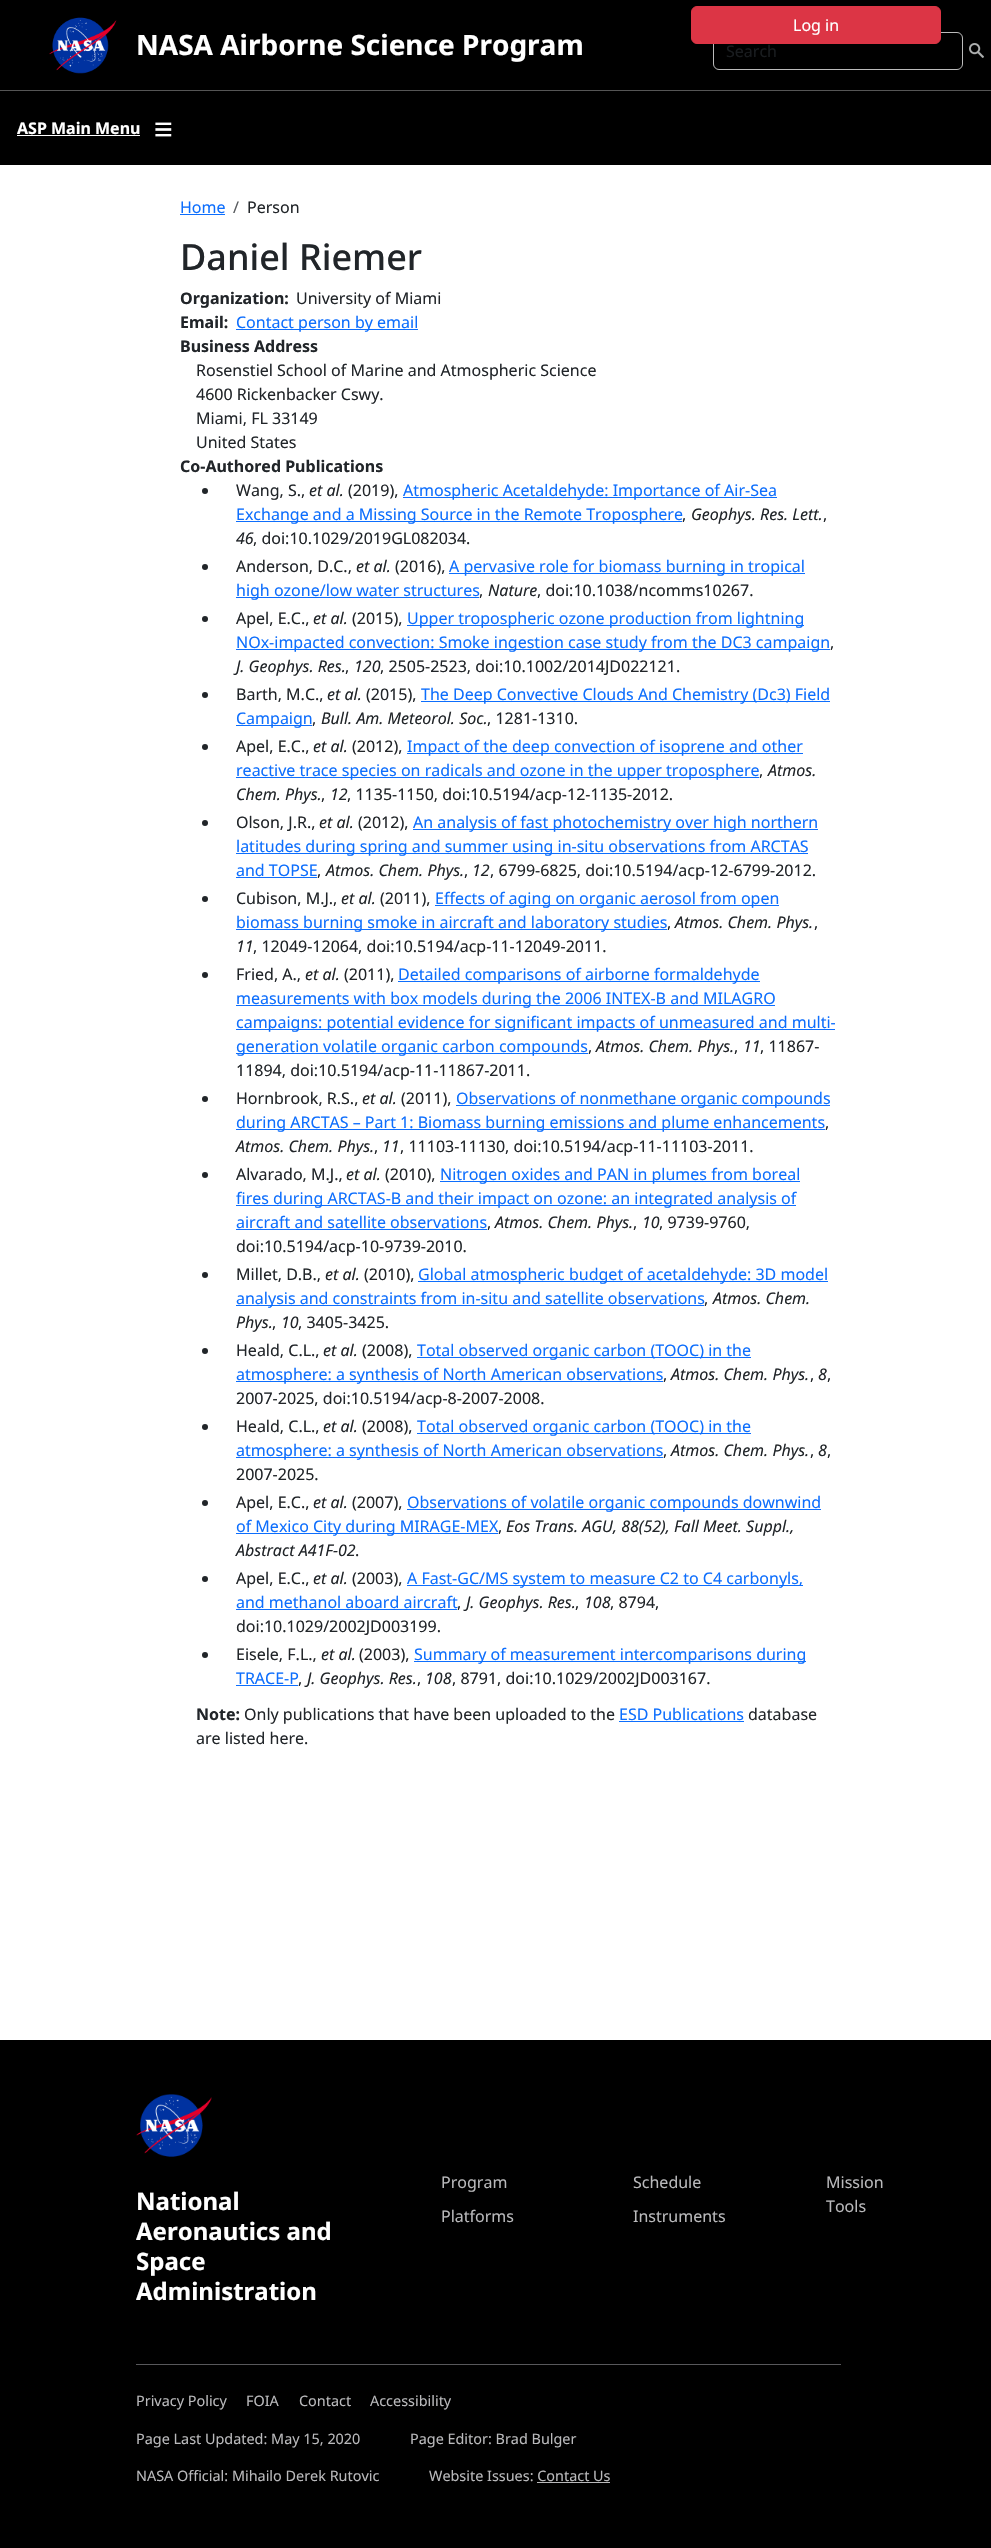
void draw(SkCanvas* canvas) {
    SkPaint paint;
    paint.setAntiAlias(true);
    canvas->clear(0xFFFFFFFF);
    paint.setColor(0xFF000000);
    canvas->drawRect(SkRect::MakeXYWH(0, 0, 991, 90), paint);
    paint.setStyle(SkPaint::kStroke_Style);
    paint.setStrokeWidth(1);
    paint.setColor(0xFFBBBBBB);
    canvas->drawRoundRect(SkRect::MakeXYWH(713.5f, 32.5f, 249, 37), 5.5f, 5.5f, paint);
    paint.setStyle(SkPaint::kFill_Style);
    paint.setColor(0xFFDC3545);
    canvas->drawRoundRect(SkRect::MakeXYWH(691.5f, 6.5f, 249, 37), 5.5f, 5.5f, paint);
    paint.setStyle(SkPaint::kStroke_Style);
    canvas->drawRoundRect(SkRect::MakeXYWH(691.5f, 6.5f, 249, 37), 5.5f, 5.5f, paint);
    SkFont font1(fontMgr->matchFamilyStyle("Noto Sans", SkFontStyle::Normal()), 16);
    font1.setSubpixel(true);
    paint.setStyle(SkPaint::kFill_Style);
    paint.setColor(0xFFFFFFFF);
    canvas->drawString("Log in", 793, 31, font1, paint);
    canvas->drawImageRect(SkImages::DeferredFromEncodedData(SkData::MakeFromFileName("img1.png")), SkRect::MakeXYWH(49, 17, 68, 57), SkSamplingOptions());
    SkFont font2(fontMgr->matchFamilyStyle("Noto Sans", SkFontStyle::Bold()), 28);
    font2.setSubpixel(true);
    canvas->drawString("NASA Airborne Science Program", 136, 55, font2, paint);
    paint.setColor(0xFF191C1F);
    canvas->drawString("Search", 726, 57, font1, paint);
    canvas->drawImageRect(SkImages::DeferredFromEncodedData(SkData::MakeFromFileName("img2.png")), SkRect::MakeXYWH(969, 43, 15, 15), SkSamplingOptions());
    paint.setColor(0xFF000000);
    canvas->drawRect(SkRect::MakeXYWH(0, 91, 991, 74), paint);
    paint.setColor(0xFF555555);
    canvas->drawRect(SkRect::MakeXYWH(0, 90, 991, 1), paint);
    SkFont font3(fontMgr->matchFamilyStyle("Noto Sans", SkFontStyle::Bold()), 16);
    font3.setSubpixel(true);
    paint.setColor(0xFFFFFFFF);
    canvas->drawString("ASP Main Menu", 17, 134, font3, paint);
    canvas->drawRect(SkRect::MakeXYWH(17, 135, 123, 1), paint);
    SkFont font4(fontMgr->matchFamilyStyle("Liberation Sans", SkFontStyle::Bold()), 32);
    font4.setSubpixel(true);
    canvas->drawString("≡", 154, 140, font4, paint);
    paint.setColor(0xFF0D6EFD);
    canvas->drawString("Home", 180, 213, font1, paint);
    canvas->drawRect(SkRect::MakeXYWH(180, 214, 45, 1), paint);
    paint.setColor(0xFF595C5F);
    canvas->drawString("/", 233, 213, font1, paint);
    paint.setColor(0xFF212529);
    canvas->drawString("Person", 247, 213, font1, paint);
    SkFont font5(fontMgr->matchFamilyStyle("Noto Sans", SkFontStyle(500, SkFontStyle::kNormal_Width, SkFontStyle::kUpright_Slant)), 36);
    font5.setSubpixel(true);
    canvas->drawString("Daniel Riemer", 180, 270, font5, paint);
    canvas->drawString("Organization:", 180, 304, font3, paint);
    canvas->drawString("University of Miami", 296, 304, font1, paint);
    canvas->drawString("Email:", 180, 328, font3, paint);
    paint.setColor(0xFF0D6EFD);
    canvas->drawRect(SkRect::MakeXYWH(236, 329, 182, 1), paint);
    canvas->drawString("Contact person by email", 236, 328, font1, paint);
    paint.setColor(0xFF212529);
    canvas->drawString("Business Address", 180, 352, font3, paint);
    canvas->drawString("Rosenstiel School of Marine and Atmospheric Science", 196, 376, font1, paint);
    canvas->drawString("4600 Rickenbacker Cswy.", 196, 400, font1, paint);
    canvas->drawString("Miami, FL 33149", 196, 424, font1, paint);
    canvas->drawString("United States", 196, 448, font1, paint);
    canvas->drawString("Co-Authored Publications", 180, 472, font3, paint);
    canvas->drawCircle(205, 491, 3, paint);
    canvas->drawString("Wang, S.,", 236, 496, font1, paint);
    SkFont font6(fontMgr->matchFamilyStyle("Noto Sans", SkFontStyle::Italic()), 16);
    font6.setSubpixel(true);
    canvas->drawString("et al.", 309, 496, font6, paint);
    canvas->drawString("(2019),", 348, 496, font1, paint);
    paint.setColor(0xFF0D6EFD);
    canvas->drawRect(SkRect::MakeXYWH(403, 497, 374, 1), paint);
    canvas->drawString("Atmospheric Acetaldehyde: Importance of Air‐Sea", 403, 496, font1, paint);
    canvas->drawRect(SkRect::MakeXYWH(236, 521, 446, 1), paint);
    canvas->drawString("Exchange and a Missing Source in the Remote Troposphere", 236, 520, font1, paint);
    paint.setColor(0xFF212529);
    canvas->drawString(",", 682, 520, font1, paint);
    canvas->drawString("Geophys. Res. Lett.", 691, 520, font6, paint);
    canvas->drawString(",", 823, 520, font1, paint);
    canvas->drawString("46", 236, 544, font6, paint);
    canvas->drawString(", doi:10.1029/2019GL082034.", 253, 544, font1, paint);
    canvas->drawCircle(205, 567, 3, paint);
    canvas->drawString("Anderson, D.C.,", 236, 572, font1, paint);
    canvas->drawString("et al.", 356, 572, font6, paint);
    canvas->drawString("(2016),", 395, 572, font1, paint);
    paint.setColor(0xFF0D6EFD);
    canvas->drawRect(SkRect::MakeXYWH(449, 573, 356, 1), paint);
    canvas->drawString("A pervasive role for biomass burning in tropical", 449, 572, font1, paint);
    canvas->drawRect(SkRect::MakeXYWH(236, 597, 243, 1), paint);
    canvas->drawString("high ozone/low water structures", 236, 596, font1, paint);
    paint.setColor(0xFF212529);
    canvas->drawString(",", 479, 596, font1, paint);
    canvas->drawString("Nature", 488, 596, font6, paint);
    canvas->drawString(", doi:10.1038/ncomms10267.", 537, 596, font1, paint);
    canvas->drawCircle(205, 619, 3, paint);
    canvas->drawString("Apel, E.C.,", 236, 624, font1, paint);
    canvas->drawString("et al.", 313, 624, font6, paint);
    canvas->drawString("(2015),", 352, 624, font1, paint);
    paint.setColor(0xFF0D6EFD);
    canvas->drawRect(SkRect::MakeXYWH(407, 625, 397, 1), paint);
    canvas->drawString("Upper tropospheric ozone production from lightning", 407, 624, font1, paint);
    canvas->drawRect(SkRect::MakeXYWH(236, 649, 594, 1), paint);
    canvas->drawString("NOx-impacted convection: Smoke ingestion case study from the DC3 campaign", 236, 648, font1, paint);
    paint.setColor(0xFF212529);
    canvas->drawString(",", 830, 648, font1, paint);
    canvas->drawString("J. Geophys. Res.", 236, 672, font6, paint);
    canvas->drawString(",", 345, 672, font1, paint);
    canvas->drawString("120", 354, 672, font6, paint);
    canvas->drawString(", 2505-2523, doi:10.1002/2014JD022121.", 380, 672, font1, paint);
    canvas->drawCircle(205, 695, 3, paint);
    canvas->drawString("Barth, M.C.,", 236, 700, font1, paint);
    canvas->drawString("et al.", 327, 700, font6, paint);
    canvas->drawString("(2015),", 366, 700, font1, paint);
    paint.setColor(0xFF0D6EFD);
    canvas->drawRect(SkRect::MakeXYWH(421, 701, 409, 1), paint);
    canvas->drawString("The Deep Convective Clouds And Chemistry (Dc3) Field", 421, 700, font1, paint);
    canvas->drawRect(SkRect::MakeXYWH(236, 725, 76, 1), paint);
    canvas->drawString("Campaign", 236, 724, font1, paint);
    paint.setColor(0xFF212529);
    canvas->drawString(",", 312, 724, font1, paint);
    canvas->drawString("Bull. Am. Meteorol. Soc.", 321, 724, font6, paint);
    canvas->drawString(", 1281-1310.", 487, 724, font1, paint);
    canvas->drawCircle(205, 747, 3, paint);
    canvas->drawString("Apel, E.C.,", 236, 752, font1, paint);
    canvas->drawString("et al.", 313, 752, font6, paint);
    canvas->drawString("(2012),", 352, 752, font1, paint);
    paint.setColor(0xFF0D6EFD);
    canvas->drawRect(SkRect::MakeXYWH(407, 753, 396, 1), paint);
    canvas->drawString("Impact of the deep convection of isoprene and other", 407, 752, font1, paint);
    canvas->drawRect(SkRect::MakeXYWH(236, 777, 523, 1), paint);
    canvas->drawString("reactive trace species on radicals and ozone in the upper troposphere", 236, 776, font1, paint);
    paint.setColor(0xFF212529);
    canvas->drawString(",", 759, 776, font1, paint);
    canvas->drawString("Atmos.", 768, 776, font6, paint);
    canvas->drawString("Chem. Phys.", 236, 800, font6, paint);
    canvas->drawString("12", 330, 800, font6, paint);
    canvas->drawString(", 1135-1150, doi:10.5194/acp-12-1135-2012.", 347, 800, font1, paint);
    canvas->drawString(",", 321, 800, font1, paint);
    canvas->drawCircle(205, 823, 3, paint);
    canvas->drawString("Olson, J.R.,", 236, 828, font1, paint);
    canvas->drawString("et al.", 319, 828, font6, paint);
    canvas->drawString("(2012),", 358, 828, font1, paint);
    paint.setColor(0xFF0D6EFD);
    canvas->drawRect(SkRect::MakeXYWH(413, 829, 405, 1), paint);
    canvas->drawString("An analysis of fast photochemistry over high northern", 413, 828, font1, paint);
    canvas->drawRect(SkRect::MakeXYWH(236, 853, 572, 1), paint);
    canvas->drawString("latitudes during spring and summer using in-situ observations from ARCTAS", 236, 852, font1, paint);
    canvas->drawString("and TOPSE", 236, 876, font1, paint);
    canvas->drawRect(SkRect::MakeXYWH(236, 877, 81, 1), paint);
    paint.setColor(0xFF212529);
    canvas->drawString("Atmos. Chem. Phys.", 326, 876, font6, paint);
    canvas->drawString("12", 472, 876, font6, paint);
    canvas->drawString(", 6799-6825, doi:10.5194/acp-12-6799-2012.", 490, 876, font1, paint);
    canvas->drawString(",", 317, 876, font1, paint);
    canvas->drawString(",", 464, 876, font1, paint);
    canvas->drawCircle(205, 899, 3, paint);
    canvas->drawString("Cubison, M.J.,", 236, 904, font1, paint);
    canvas->drawString("et al.", 341, 904, font6, paint);
    canvas->drawString("(2011),", 380, 904, font1, paint);
    paint.setColor(0xFF0D6EFD);
    canvas->drawRect(SkRect::MakeXYWH(435, 905, 344, 1), paint);
    canvas->drawString("Effects of aging on organic aerosol from open", 435, 904, font1, paint);
    canvas->drawRect(SkRect::MakeXYWH(236, 929, 431, 1), paint);
    canvas->drawString("biomass burning smoke in aircraft and laboratory studies", 236, 928, font1, paint);
    paint.setColor(0xFF212529);
    canvas->drawString(",", 667, 928, font1, paint);
    canvas->drawString("Atmos. Chem. Phys.", 675, 928, font6, paint);
    canvas->drawString(",", 814, 928, font1, paint);
    canvas->drawString("11", 236, 952, font6, paint);
    canvas->drawString(", 12049-12064, doi:10.5194/acp-11-12049-2011.", 253, 952, font1, paint);
    canvas->drawCircle(205, 975, 3, paint);
    canvas->drawString("Fried, A.,", 236, 980, font1, paint);
    canvas->drawString("et al.", 305, 980, font6, paint);
    canvas->drawString("(2011),", 344, 980, font1, paint);
    paint.setColor(0xFF0D6EFD);
    canvas->drawRect(SkRect::MakeXYWH(398, 981, 362, 1), paint);
    canvas->drawString("Detailed comparisons of airborne formaldehyde", 398, 980, font1, paint);
    canvas->drawRect(SkRect::MakeXYWH(236, 1005, 539, 1), paint);
    canvas->drawString("measurements with box models during the 2006 INTEX-B and MILAGRO", 236, 1004, font1, paint);
    canvas->drawRect(SkRect::MakeXYWH(236, 1029, 599, 1), paint);
    canvas->drawString("campaigns: potential evidence for significant impacts of unmeasured and multi-", 236, 1028, font1, paint);
    canvas->drawRect(SkRect::MakeXYWH(236, 1053, 352, 1), paint);
    canvas->drawString("generation volatile organic carbon compounds", 236, 1052, font1, paint);
    paint.setColor(0xFF212529);
    canvas->drawString(",", 588, 1052, font1, paint);
    canvas->drawString("Atmos. Chem. Phys.", 596, 1052, font6, paint);
    canvas->drawString(",", 734, 1052, font1, paint);
    canvas->drawString("11", 743, 1052, font6, paint);
    canvas->drawString(", 11867-", 760, 1052, font1, paint);
    canvas->drawString("11894, doi:10.5194/acp-11-11867-2011.", 236, 1076, font1, paint);
    canvas->drawCircle(205, 1099, 3, paint);
    canvas->drawString("Hornbrook, R.S.,", 236, 1104, font1, paint);
    canvas->drawString("et al.", 362, 1104, font6, paint);
    canvas->drawString("(2011),", 401, 1104, font1, paint);
    paint.setColor(0xFF0D6EFD);
    canvas->drawRect(SkRect::MakeXYWH(456, 1105, 374, 1), paint);
    canvas->drawString("Observations of nonmethane organic compounds", 456, 1104, font1, paint);
    canvas->drawRect(SkRect::MakeXYWH(236, 1129, 589, 1), paint);
    canvas->drawString("during ARCTAS – Part 1: Biomass burning emissions and plume enhancements", 236, 1128, font1, paint);
    paint.setColor(0xFF212529);
    canvas->drawString(",", 825, 1128, font1, paint);
    canvas->drawString("Atmos. Chem. Phys.", 236, 1152, font6, paint);
    canvas->drawString("11", 382, 1152, font6, paint);
    canvas->drawString(", 11103-11130, doi:10.5194/acp-11-11103-2011.", 400, 1152, font1, paint);
    canvas->drawString(",", 374, 1152, font1, paint);
    canvas->drawCircle(205, 1175, 3, paint);
    canvas->drawString("Alvarado, M.J.,", 236, 1180, font1, paint);
    canvas->drawString("et al.", 346, 1180, font6, paint);
    canvas->drawString("(2010),", 385, 1180, font1, paint);
    paint.setColor(0xFF0D6EFD);
    canvas->drawRect(SkRect::MakeXYWH(440, 1181, 360, 1), paint);
    canvas->drawString("Nitrogen oxides and PAN in plumes from boreal", 440, 1180, font1, paint);
    canvas->drawRect(SkRect::MakeXYWH(236, 1205, 560, 1), paint);
    canvas->drawString("fires during ARCTAS-B and their impact on ozone: an integrated analysis of", 236, 1204, font1, paint);
    canvas->drawString("aircraft and satellite observations", 236, 1228, font1, paint);
    canvas->drawRect(SkRect::MakeXYWH(236, 1229, 251, 1), paint);
    paint.setColor(0xFF212529);
    canvas->drawString(",", 487, 1228, font1, paint);
    canvas->drawString("Atmos. Chem. Phys.", 495, 1228, font6, paint);
    canvas->drawString(",", 633, 1228, font1, paint);
    canvas->drawString("10", 642, 1228, font6, paint);
    canvas->drawString(", 9739-9760,", 659, 1228, font1, paint);
    canvas->drawString("doi:10.5194/acp-10-9739-2010.", 236, 1252, font1, paint);
    canvas->drawCircle(205, 1275, 3, paint);
    canvas->drawString("Millet, D.B.,", 236, 1280, font1, paint);
    canvas->drawString("et al.", 325, 1280, font6, paint);
    canvas->drawString("(2010),", 364, 1280, font1, paint);
    paint.setColor(0xFF0D6EFD);
    canvas->drawRect(SkRect::MakeXYWH(418, 1281, 410, 1), paint);
    canvas->drawString("Global atmospheric budget of acetaldehyde: 3D model", 418, 1280, font1, paint);
    canvas->drawRect(SkRect::MakeXYWH(236, 1305, 468, 1), paint);
    canvas->drawString("analysis and constraints from in-situ and satellite observations", 236, 1304, font1, paint);
    paint.setColor(0xFF212529);
    canvas->drawString(",", 704, 1304, font1, paint);
    canvas->drawString("Atmos. Chem.", 713, 1304, font6, paint);
    canvas->drawString("Phys.", 236, 1328, font6, paint);
    canvas->drawString(",", 272, 1328, font1, paint);
    canvas->drawString("10", 281, 1328, font6, paint);
    canvas->drawString(", 3405-3425.", 298, 1328, font1, paint);
    canvas->drawCircle(205, 1351, 3, paint);
    canvas->drawString("Heald, C.L.,", 236, 1356, font1, paint);
    canvas->drawString("et al.", 323, 1356, font6, paint);
    canvas->drawString("(2008),", 362, 1356, font1, paint);
    paint.setColor(0xFF0D6EFD);
    canvas->drawRect(SkRect::MakeXYWH(417, 1357, 334, 1), paint);
    canvas->drawString("Total observed organic carbon (TOOC) in the", 417, 1356, font1, paint);
    canvas->drawRect(SkRect::MakeXYWH(236, 1381, 427, 1), paint);
    canvas->drawString("atmosphere: a synthesis of North American observations", 236, 1380, font1, paint);
    paint.setColor(0xFF212529);
    canvas->drawString(",", 663, 1380, font1, paint);
    canvas->drawString("Atmos. Chem. Phys.", 671, 1380, font6, paint);
    canvas->drawString(",", 810, 1380, font1, paint);
    canvas->drawString("8", 818, 1380, font6, paint);
    canvas->drawString(",", 827, 1380, font1, paint);
    canvas->drawString("2007-2025, doi:10.5194/acp-8-2007-2008.", 236, 1404, font1, paint);
    canvas->drawCircle(205, 1427, 3, paint);
    canvas->drawString("Heald, C.L.,", 236, 1432, font1, paint);
    canvas->drawString("et al.", 323, 1432, font6, paint);
    canvas->drawString("(2008),", 362, 1432, font1, paint);
    paint.setColor(0xFF0D6EFD);
    canvas->drawRect(SkRect::MakeXYWH(417, 1433, 334, 1), paint);
    canvas->drawString("Total observed organic carbon (TOOC) in the", 417, 1432, font1, paint);
    canvas->drawRect(SkRect::MakeXYWH(236, 1457, 427, 1), paint);
    canvas->drawString("atmosphere: a synthesis of North American observations", 236, 1456, font1, paint);
    paint.setColor(0xFF212529);
    canvas->drawString(",", 663, 1456, font1, paint);
    canvas->drawString("Atmos. Chem. Phys.", 671, 1456, font6, paint);
    canvas->drawString(",", 810, 1456, font1, paint);
    canvas->drawString("8", 818, 1456, font6, paint);
    canvas->drawString(",", 827, 1456, font1, paint);
    canvas->drawString("2007-2025.", 236, 1480, font1, paint);
    canvas->drawCircle(205, 1503, 3, paint);
    canvas->drawString("Apel, E.C.,", 236, 1508, font1, paint);
    canvas->drawString("et al.", 313, 1508, font6, paint);
    canvas->drawString("(2007),", 352, 1508, font1, paint);
    paint.setColor(0xFF0D6EFD);
    canvas->drawRect(SkRect::MakeXYWH(407, 1509, 414, 1), paint);
    canvas->drawString("Observations of volatile organic compounds downwind", 407, 1508, font1, paint);
    canvas->drawRect(SkRect::MakeXYWH(236, 1533, 262, 1), paint);
    canvas->drawString("of Mexico City during MIRAGE-MEX", 236, 1532, font1, paint);
    paint.setColor(0xFF212529);
    canvas->drawString(",", 498, 1532, font1, paint);
    canvas->drawString("Eos Trans. AGU, 88(52), Fall Meet. Suppl.,", 506, 1532, font6, paint);
    canvas->drawString("Abstract A41F-02", 236, 1556, font6, paint);
    canvas->drawString(".", 355, 1556, font1, paint);
    canvas->drawCircle(205, 1579, 3, paint);
    canvas->drawString("Apel, E.C.,", 236, 1584, font1, paint);
    canvas->drawString("et al.", 313, 1584, font6, paint);
    canvas->drawString("(2003),", 352, 1584, font1, paint);
    paint.setColor(0xFF0D6EFD);
    canvas->drawRect(SkRect::MakeXYWH(407, 1585, 396, 1), paint);
    canvas->drawString("A Fast-GC/MS system to measure C2 to C4 carbonyls,", 407, 1584, font1, paint);
    canvas->drawString("and methanol aboard aircraft", 236, 1608, font1, paint);
    canvas->drawRect(SkRect::MakeXYWH(236, 1609, 221, 1), paint);
    paint.setColor(0xFF212529);
    canvas->drawString(",", 457, 1608, font1, paint);
    canvas->drawString("J. Geophys. Res.", 466, 1608, font6, paint);
    canvas->drawString(",", 575, 1608, font1, paint);
    canvas->drawString("108", 584, 1608, font6, paint);
    canvas->drawString(", 8794,", 610, 1608, font1, paint);
    canvas->drawString("doi:10.1029/2002JD003199.", 236, 1632, font1, paint);
    canvas->drawCircle(205, 1655, 3, paint);
    canvas->drawString("Eisele, F.L.,", 236, 1660, font1, paint);
    canvas->drawString("et al.", 321, 1660, font6, paint);
    canvas->drawString("(2003),", 359, 1660, font1, paint);
    paint.setColor(0xFF0D6EFD);
    canvas->drawRect(SkRect::MakeXYWH(414, 1661, 392, 1), paint);
    canvas->drawString("Summary of measurement intercomparisons during", 414, 1660, font1, paint);
    canvas->drawString("TRACE-P", 236, 1684, font1, paint);
    canvas->drawRect(SkRect::MakeXYWH(236, 1685, 62, 1), paint);
    paint.setColor(0xFF212529);
    canvas->drawString(",", 298, 1684, font1, paint);
    canvas->drawString("J. Geophys. Res.", 307, 1684, font6, paint);
    canvas->drawString(",", 417, 1684, font1, paint);
    canvas->drawString("108", 425, 1684, font6, paint);
    canvas->drawString(", 8791, doi:10.1029/2002JD003167.", 452, 1684, font1, paint);
    canvas->drawString("Note:", 196, 1720, font3, paint);
    canvas->drawString("Only publications that have been uploaded to the", 244, 1720, font1, paint);
    paint.setColor(0xFF0D6EFD);
    canvas->drawString("ESD Publications", 619, 1720, font1, paint);
    canvas->drawRect(SkRect::MakeXYWH(619, 1721, 125, 1), paint);
    paint.setColor(0xFF212529);
    canvas->drawString("database", 748, 1720, font1, paint);
    canvas->drawString("are listed here.", 196, 1744, font1, paint);
    paint.setColor(0xFF000000);
    canvas->drawRect(SkRect::MakeXYWH(0, 2040, 991, 508), paint);
    canvas->drawImageRect(SkImages::DeferredFromEncodedData(SkData::MakeFromFileName("img3.png")), SkRect::MakeXYWH(136, 2094, 76, 63), SkSamplingOptions());
    SkFont font7(fontMgr->matchFamilyStyle("Noto Sans", SkFontStyle::Bold()), 24);
    font7.setSubpixel(true);
    paint.setColor(0xFFFFFFFF);
    canvas->drawString("National", 136, 2210, font7, paint);
    canvas->drawString("Aeronautics and", 136, 2240, font7, paint);
    canvas->drawString("Space", 136, 2270, font7, paint);
    canvas->drawString("Administration", 136, 2300, font7, paint);
    paint.setColor(0xFFB9B9BB);
    canvas->drawString("Program", 441, 2188, font1, paint);
    canvas->drawString("Schedule", 633, 2188, font1, paint);
    canvas->drawString("Mission", 826, 2188, font1, paint);
    canvas->drawString("Tools", 826, 2212, font1, paint);
    canvas->drawString("Platforms", 441, 2222, font1, paint);
    canvas->drawString("Instruments", 633, 2222, font1, paint);
    paint.setColor(0xFF58585B);
    canvas->drawRect(SkRect::MakeXYWH(136, 2364, 705, 1), paint);
    SkFont font8(fontMgr->matchFamilyStyle("Noto Sans", SkFontStyle::Normal()), 14.4f);
    font8.setSubpixel(true);
    paint.setColor(0xFFB9B9BB);
    canvas->drawString("Privacy Policy", 136, 2406, font8, paint);
    canvas->drawString("FOIA", 246, 2406, font8, paint);
    canvas->drawString("Contact", 299, 2406, font8, paint);
    canvas->drawString("Accessibility", 370, 2406, font8, paint);
    canvas->drawString("Page Last Updated: May 15, 2020", 136, 2444, font8, paint);
    canvas->drawString("Page Editor: Brad Bulger", 410, 2444, font8, paint);
    canvas->drawString("NASA Official: Mihailo Derek Rutovic", 136, 2481, font8, paint);
    canvas->drawString("Website Issues: Contact Us", 429, 2481, font8, paint);
    canvas->drawRect(SkRect::MakeXYWH(537, 2482, 73, 1), paint);
}
